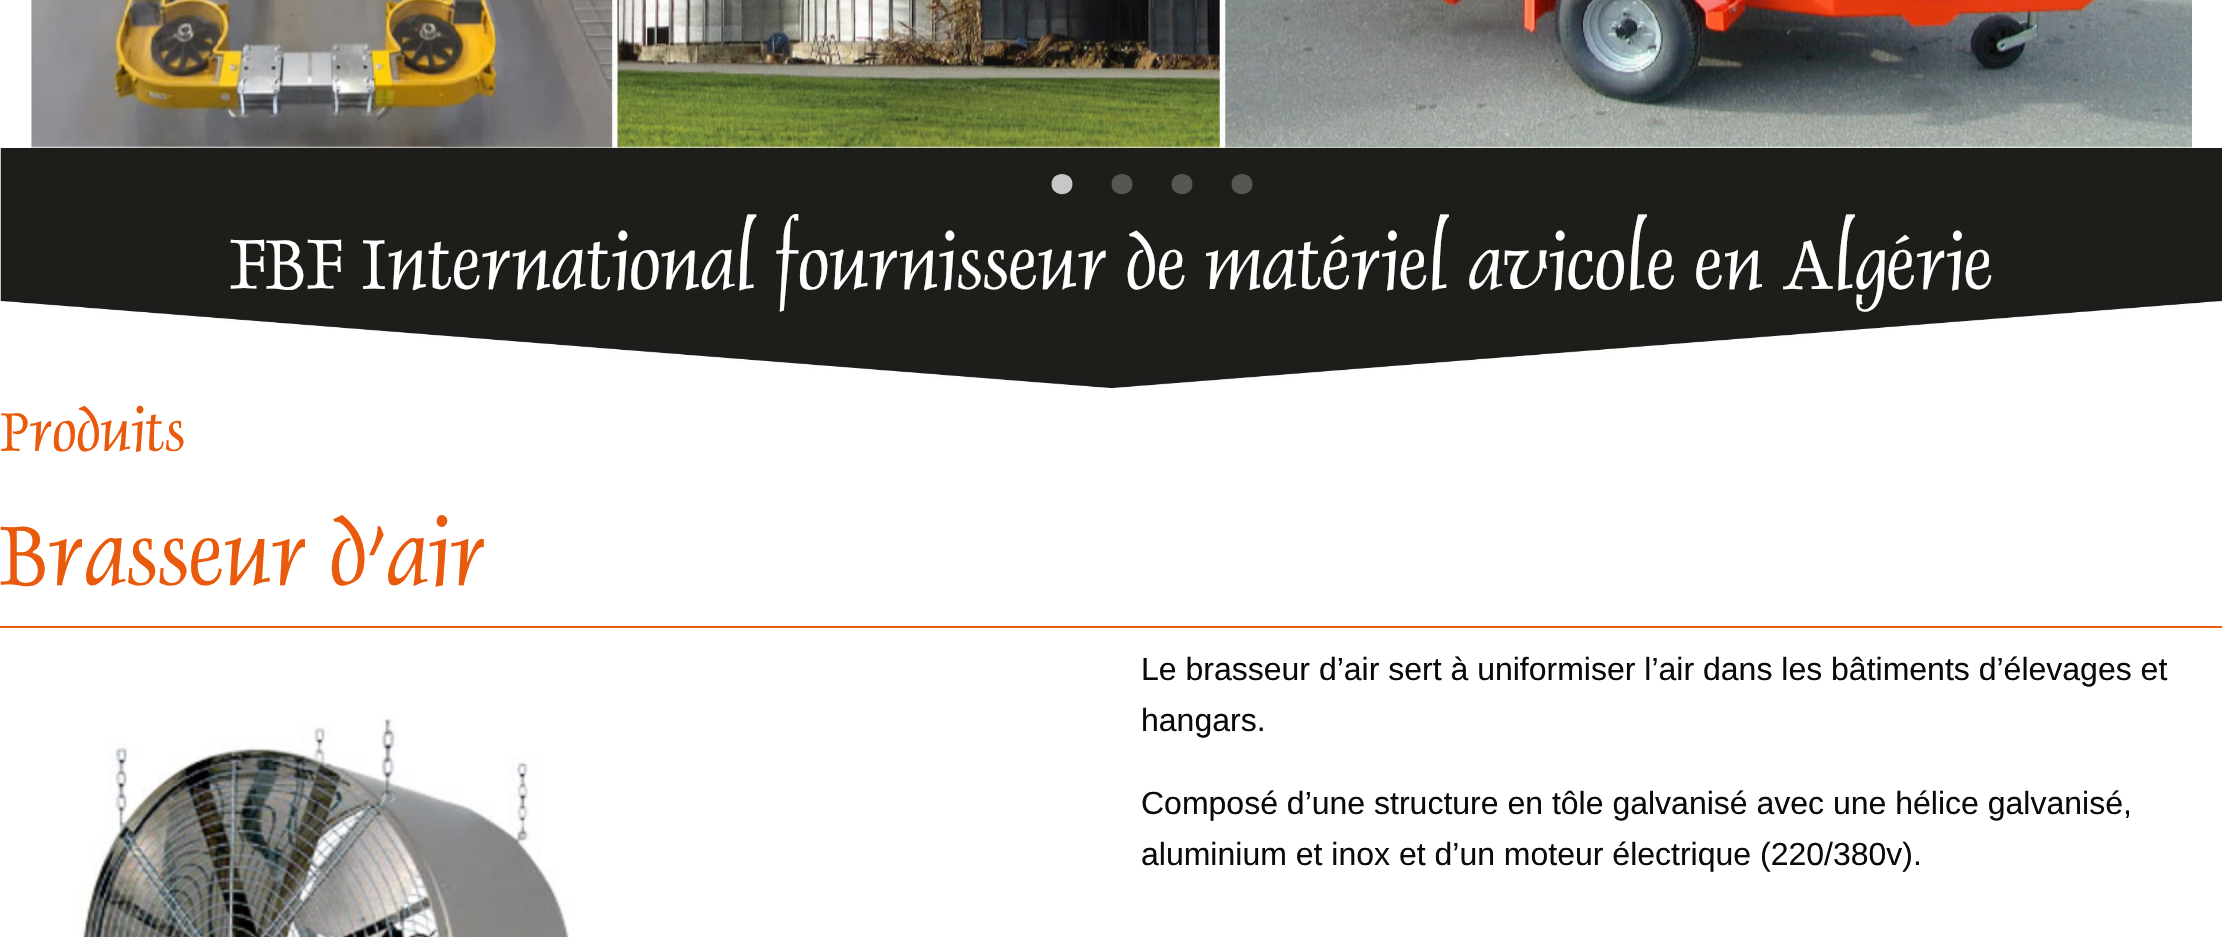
void draw(SkCanvas* canvas) {
    SkPaint paint;
    paint.setAntiAlias(true);
    canvas->clear(0xFFFFFFFF);
    canvas->drawImageRect(SkImages::DeferredFromEncodedData(SkData::MakeFromFileName("img1.png")), SkRect::MakeXYWH(31, 0, 2161, 148), SkSamplingOptions());
    canvas->drawImageRect(SkImages::DeferredFromEncodedData(SkData::MakeFromFileName("img2.png")), SkRect::MakeXYWH(0, 148, 2222, 240), SkSamplingOptions());
    paint.setColor(0xFFC7C7C6);
    canvas->drawPath(SkPathBuilder().moveTo(1072.5f, 184).cubicTo(1072.5f, 170.5f, 1051.5f, 170.5f, 1051.5f, 184).cubicTo(1051.5f, 197.5f, 1072.5f, 197.5f, 1072.5f, 184).close().detach(), paint);
    paint.setColor(0xFF565653);
    canvas->drawPath(SkPathBuilder().moveTo(1132.5f, 184).cubicTo(1132.5f, 170.5f, 1111.5f, 170.5f, 1111.5f, 184).cubicTo(1111.5f, 197.5f, 1132.5f, 197.5f, 1132.5f, 184).close().detach(), paint);
    canvas->drawPath(SkPathBuilder().moveTo(1192.5f, 184).cubicTo(1192.5f, 170.5f, 1171.5f, 170.5f, 1171.5f, 184).cubicTo(1171.5f, 197.5f, 1192.5f, 197.5f, 1192.5f, 184).close().detach(), paint);
    canvas->drawPath(SkPathBuilder().moveTo(1252.5f, 184).cubicTo(1252.5f, 170.5f, 1231.5f, 170.5f, 1231.5f, 184).cubicTo(1231.5f, 197.5f, 1252.5f, 197.5f, 1252.5f, 184).close().detach(), paint);
    SkFont font1(fontMgr->matchFamilyStyle("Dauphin", SkFontStyle::Normal()), 80);
    font1.setSubpixel(true);
    paint.setColor(0xFFFFFFFF);
    canvas->drawString("FBF International fournisseur de matériel avicole en Algérie", 229, 289, font1, paint);
    SkFont font2(fontMgr->matchFamilyStyle("Dauphin", SkFontStyle::Normal()), 62);
    font2.setSubpixel(true);
    paint.setColor(0xFFE95A0C);
    canvas->drawString("Produits", 0, 451, font2, paint);
    canvas->drawRect(SkRect::MakeXYWH(0, 626, 2222, 2), paint);
    SkFont font3(fontMgr->matchFamilyStyle("Dauphin", SkFontStyle::Normal()), 96);
    font3.setSubpixel(true);
    canvas->drawString("Brasseur d'air", 0, 585, font3, paint);
    canvas->drawImageRect(SkImages::DeferredFromEncodedData(SkData::MakeFromFileName("img3.png")), SkRect::MakeXYWH(79, 715, 490, 222), SkSamplingOptions());
    SkFont font4(fontMgr->matchFamilyStyle("Liberation Sans", SkFontStyle::Normal()), 32);
    font4.setSubpixel(true);
    paint.setColor(0xFF0A0A0A);
    canvas->drawString("Le brasseur d’air sert à uniformiser l’air dans les bâtiments d’élevages et", 1141, 680, font4, paint);
    canvas->drawString("hangars.", 1141, 731, font4, paint);
    canvas->drawString("Composé d’une structure en tôle galvanisé avec une hélice galvanisé,", 1141, 814, font4, paint);
    canvas->drawString("aluminium et inox et d’un moteur électrique (220/380v).", 1141, 865, font4, paint);
}
